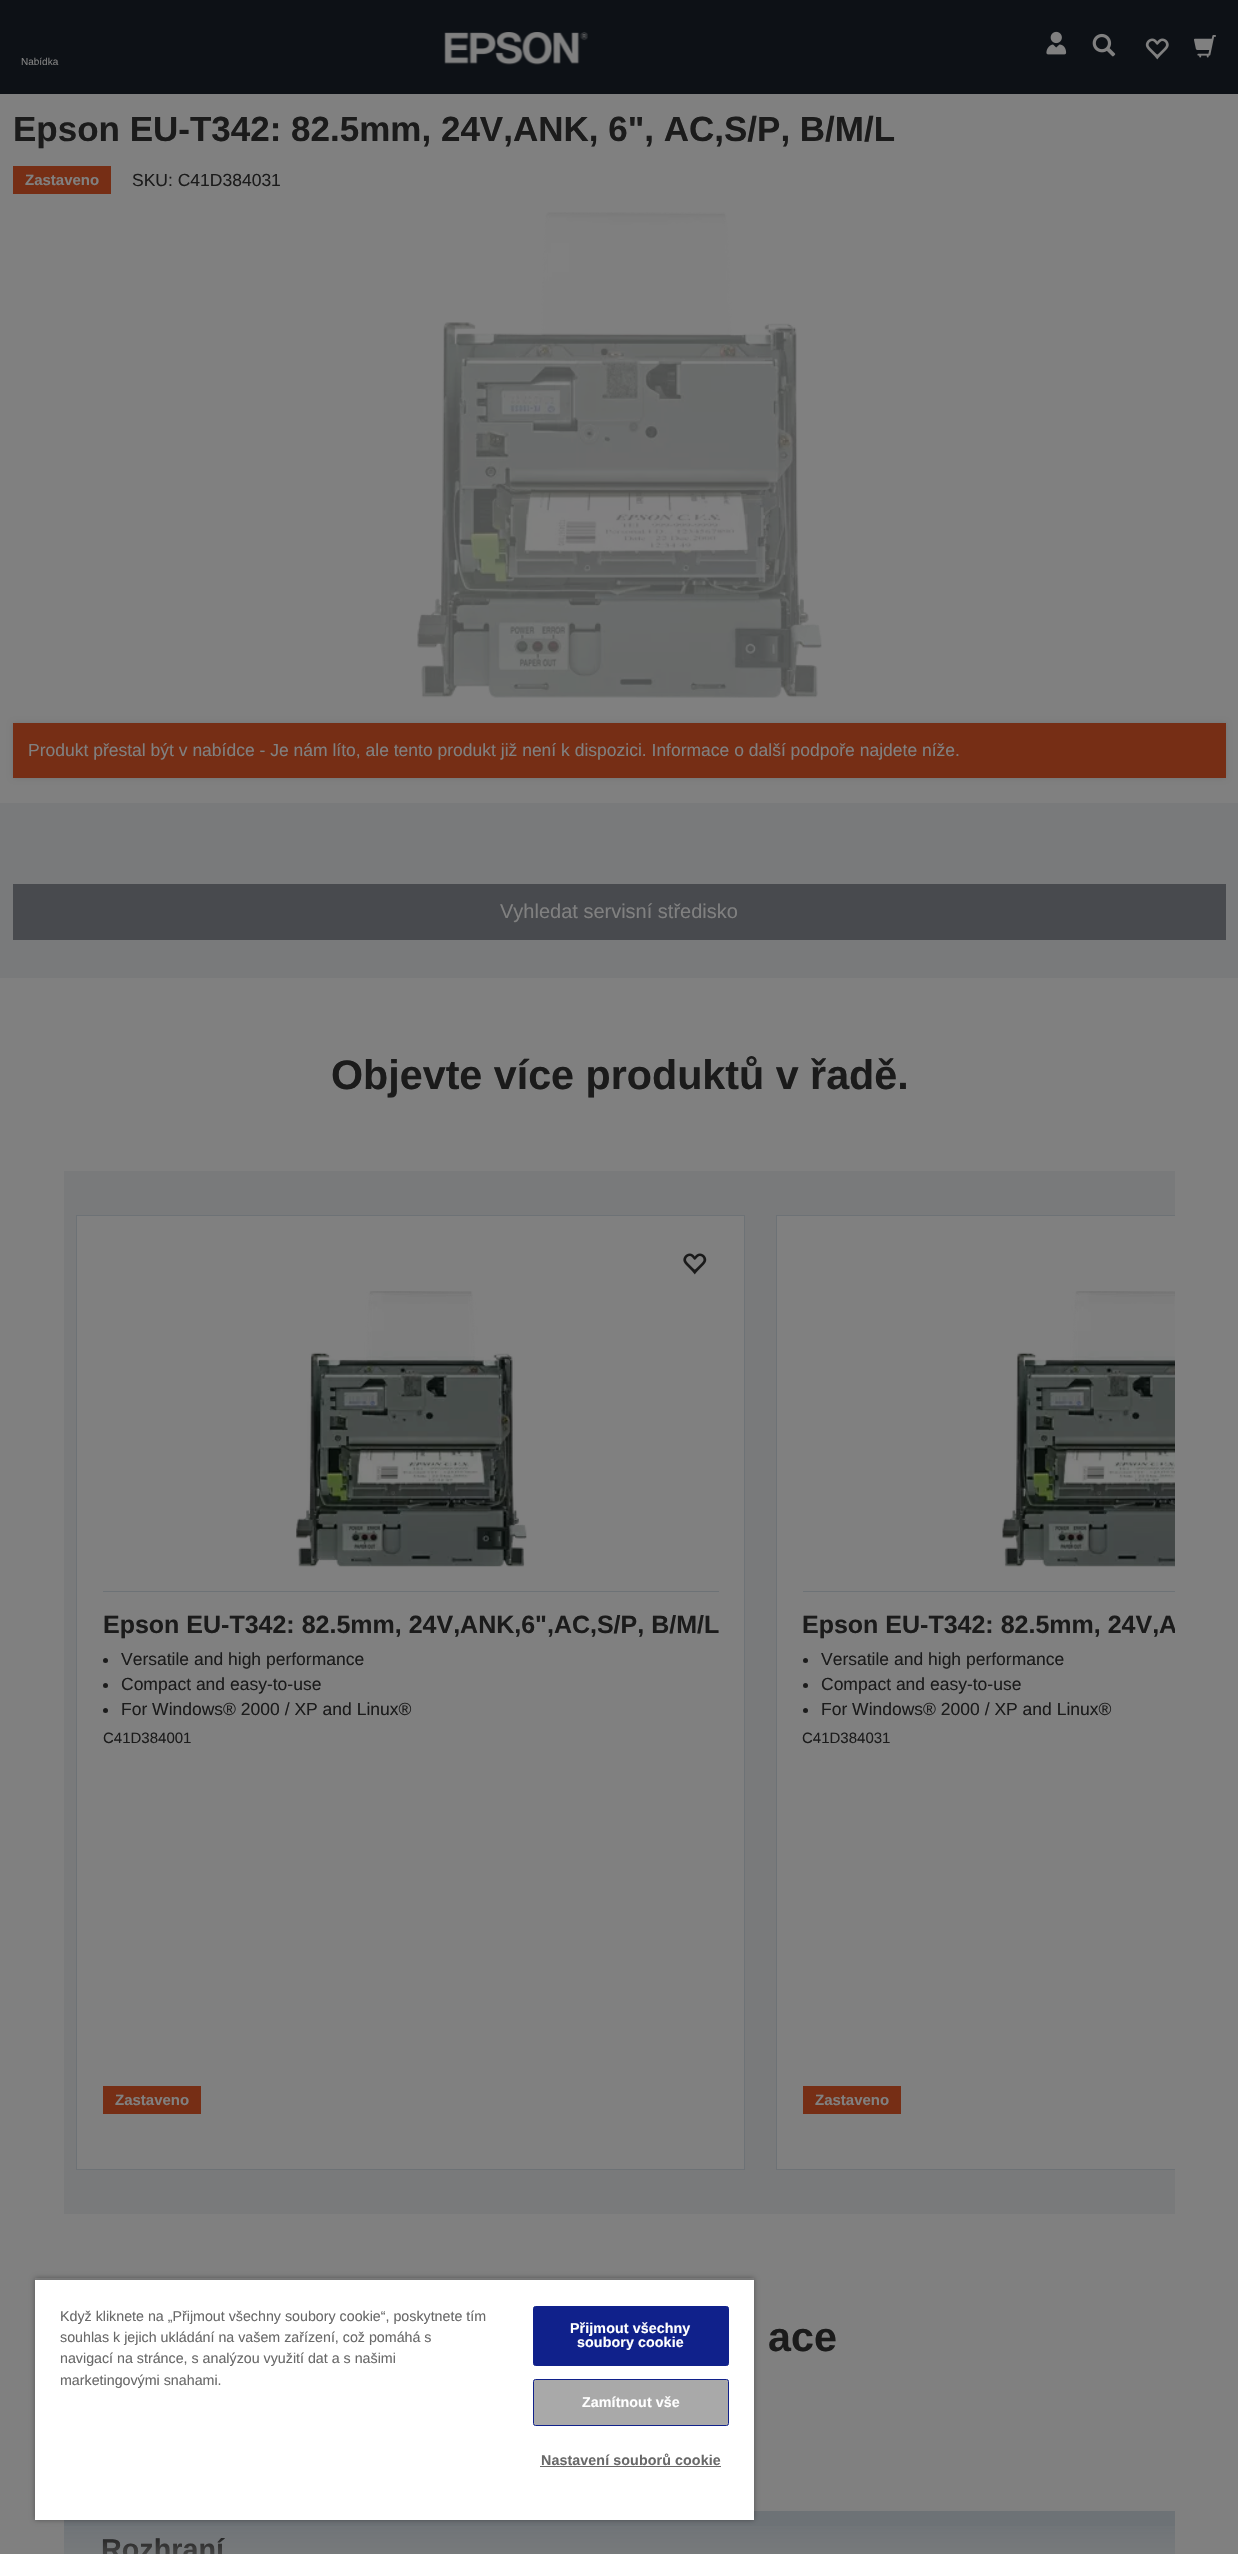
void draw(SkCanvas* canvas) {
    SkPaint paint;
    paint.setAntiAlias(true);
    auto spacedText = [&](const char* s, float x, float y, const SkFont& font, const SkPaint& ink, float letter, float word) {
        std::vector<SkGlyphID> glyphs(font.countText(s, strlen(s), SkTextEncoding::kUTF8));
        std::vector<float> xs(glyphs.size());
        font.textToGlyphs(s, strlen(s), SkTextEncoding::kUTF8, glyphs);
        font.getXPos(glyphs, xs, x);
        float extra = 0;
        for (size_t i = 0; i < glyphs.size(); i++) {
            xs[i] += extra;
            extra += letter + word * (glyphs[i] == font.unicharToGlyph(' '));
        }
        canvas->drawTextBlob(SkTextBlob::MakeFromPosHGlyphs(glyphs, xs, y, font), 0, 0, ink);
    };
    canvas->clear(0xFF808080);
    paint.setColor(0xFF0D1116);
    canvas->drawRect(SkRect::MakeXYWH(0, 0, 1238, 94), paint);
    SkFont font1(fontMgr->matchFamilyStyle("Liberation Sans", SkFontStyle::Normal()), 10);
    font1.setSubpixel(true);
    paint.setColor(0xFF808080);
    canvas->drawString("Nabídka", 21, 65, font1, paint);
    canvas->drawImageRect(SkImages::DeferredFromEncodedData(SkData::MakeFromFileName("img1.png")), SkRect::MakeXYWH(444, 32, 144, 33), SkSamplingOptions());
    canvas->drawImageRect(SkImages::DeferredFromEncodedData(SkData::MakeFromFileName("img2.png")), SkRect::MakeXYWH(1046, 31, 21, 24), SkSamplingOptions());
    canvas->drawImageRect(SkImages::DeferredFromEncodedData(SkData::MakeFromFileName("img3.png")), SkRect::MakeXYWH(1092, 33, 24, 24), SkSamplingOptions());
    canvas->drawImageRect(SkImages::DeferredFromEncodedData(SkData::MakeFromFileName("img4.png")), SkRect::MakeXYWH(1145, 38, 24, 22), SkSamplingOptions());
    canvas->drawImageRect(SkImages::DeferredFromEncodedData(SkData::MakeFromFileName("img5.png")), SkRect::MakeXYWH(1194, 35, 22, 23), SkSamplingOptions());
    SkFont font2(fontMgr->matchFamilyStyle("Liberation Sans", SkFontStyle::Bold()), 35);
    font2.setSubpixel(true);
    paint.setColor(0xFF1B1B1B);
    canvas->drawString("Epson EU-T342: 82.5mm, 24V,ANK, 6\", AC,S/P, B/M/L", 13, 141, font2, paint);
    paint.setColor(0xFF762E15);
    canvas->drawRect(SkRect::MakeXYWH(13, 166, 98, 28), paint);
    SkFont font3(fontMgr->matchFamilyStyle("Liberation Sans", SkFontStyle::Bold()), 15);
    font3.setSubpixel(true);
    paint.setColor(0xFF808080);
    canvas->drawString("Zastaveno", 25, 185, font3, paint);
    SkFont font4(fontMgr->matchFamilyStyle("Liberation Sans", SkFontStyle::Normal()), 17.5f);
    font4.setSubpixel(true);
    paint.setColor(0xFF1B1B1B);
    canvas->drawString("SKU: C41D384031", 132, 186, font4, paint);
    canvas->drawImageRect(SkImages::DeferredFromEncodedData(SkData::MakeFromFileName("img6.png")), SkRect::MakeXYWH(417, 212, 405, 486), SkSamplingOptions());
    paint.setColor(0x1A000000);
    paint.setMaskFilter(SkMaskFilter::MakeBlur(kNormal_SkBlurStyle, 2.5f));
    canvas->drawRect(SkRect::MakeXYWH(13, 723, 1213, 55), paint);
    paint.setMaskFilter(nullptr);
    paint.setColor(0xFF762E15);
    canvas->drawRect(SkRect::MakeXYWH(13, 723, 1213, 55), paint);
    paint.setColor(0xFF808080);
    canvas->drawString("Produkt přestal být v nabídce - Je nám líto, ale tento produkt již není k dispozici. Informace o další podpoře najdete níže.", 28, 756, font4, paint);
    paint.setColor(0xFF797A7B);
    canvas->drawRect(SkRect::MakeXYWH(0, 803, 1238, 175), paint);
    paint.setColor(0xFF484A4E);
    canvas->drawRect(SkRect::MakeXYWH(13, 884, 1213, 56), paint);
    SkFont font5(fontMgr->matchFamilyStyle("Liberation Sans", SkFontStyle::Normal()), 20);
    font5.setSubpixel(true);
    paint.setColor(0xFF808080);
    canvas->drawString("Vyhledat servisní středisko", 500, 918, font5, paint);
    SkFont font6(fontMgr->matchFamilyStyle("Liberation Sans", SkFontStyle::Bold()), 41.25f);
    font6.setSubpixel(true);
    paint.setColor(0xFF1B1B1B);
    canvas->drawString("Objevte více produktů v řadě.", 331, 1089, font6, paint);
    paint.setColor(0xFF797A7B);
    canvas->drawRect(SkRect::MakeXYWH(64, 1171, 1111, 1043), paint);
    paint.setColor(0xFF808080);
    canvas->drawRect(SkRect::MakeXYWH(76.5f, 1215.5f, 668, 954), paint);
    paint.setStyle(SkPaint::kStroke_Style);
    paint.setStrokeWidth(1);
    paint.setColor(0xFF6D7276);
    canvas->drawRect(SkRect::MakeXYWH(76.5f, 1215.5f, 668, 954), paint);
    paint.setStyle(SkPaint::kFill_Style);
    canvas->drawRect(SkRect::MakeXYWH(103, 1591, 616, 1), paint);
    canvas->drawImageRect(SkImages::DeferredFromEncodedData(SkData::MakeFromFileName("img7.png")), SkRect::MakeXYWH(683, 1253, 24, 22), SkSamplingOptions());
    canvas->drawImageRect(SkImages::DeferredFromEncodedData(SkData::MakeFromFileName("img8.png")), SkRect::MakeXYWH(296, 1291, 231, 276), SkSamplingOptions());
    SkFont font7(fontMgr->matchFamilyStyle("Liberation Sans", SkFontStyle::Bold()), 25);
    font7.setSubpixel(true);
    paint.setColor(0xFF1B1B1B);
    canvas->drawString("Epson EU-T342: 82.5mm, 24V,ANK,6\",AC,S/P, B/M/L", 103, 1633, font7, paint);
    canvas->drawCircle(105.5f, 1660.5f, 2.5f, paint);
    canvas->drawString("Versatile and high performance", 121, 1665, font4, paint);
    canvas->drawCircle(105.5f, 1685.5f, 2.5f, paint);
    canvas->drawString("Compact and easy-to-use", 121, 1690, font4, paint);
    canvas->drawCircle(105.5f, 1710.5f, 2.5f, paint);
    canvas->drawString("For Windows® 2000 / XP and Linux®", 121, 1715, font4, paint);
    SkFont font8(fontMgr->matchFamilyStyle("Liberation Sans", SkFontStyle::Normal()), 15);
    font8.setSubpixel(true);
    canvas->drawString("C41D384001", 103, 1743, font8, paint);
    paint.setColor(0xFF762E15);
    canvas->drawRect(SkRect::MakeXYWH(103, 2086, 98, 28), paint);
    paint.setColor(0xFF808080);
    canvas->drawString("Zastaveno", 115, 2105, font3, paint);
    canvas->drawRect(SkRect::MakeXYWH(777, 1216, 398, 953), paint);
    canvas->save();
    canvas->clipRect(SkRect::MakeXYWH(64, 1171, 1111, 1043));
    paint.setStyle(SkPaint::kStroke_Style);
    paint.setColor(0xFF6D7276);
    canvas->drawRect(SkRect::MakeXYWH(776.5f, 1215.5f, 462, 954), paint);
    canvas->restore();
    paint.setStyle(SkPaint::kFill_Style);
    canvas->drawRect(SkRect::MakeXYWH(803, 1591, 372, 1), paint);
    canvas->drawImageRect(SkImages::DeferredFromEncodedData(SkData::MakeFromFileName("img9.png")), SkRect::MakeXYWH(1002, 1291, 173, 276), SkSamplingOptions());
    canvas->save();
    canvas->clipRect(SkRect::MakeXYWH(64, 1171, 1111, 1043));
    paint.setColor(0xFF1B1B1B);
    canvas->drawString("Epson EU-T342: 82.5mm, 24V,A", 802, 1633, font7, paint);
    canvas->restore();
    canvas->drawCircle(805.5f, 1660.5f, 2.5f, paint);
    canvas->drawString("Versatile and high performance", 821, 1665, font4, paint);
    canvas->drawCircle(805.5f, 1685.5f, 2.5f, paint);
    canvas->drawString("Compact and easy-to-use", 821, 1690, font4, paint);
    canvas->drawCircle(805.5f, 1710.5f, 2.5f, paint);
    canvas->drawString("For Windows® 2000 / XP and Linux®", 821, 1715, font4, paint);
    canvas->drawString("C41D384031", 802, 1743, font8, paint);
    paint.setColor(0xFF762E15);
    canvas->drawRect(SkRect::MakeXYWH(803, 2086, 98, 28), paint);
    paint.setColor(0xFF808080);
    canvas->drawString("Zastaveno", 815, 2105, font3, paint);
    paint.setColor(0xFF1B1B1B);
    canvas->drawString("ace", 768, 2351, font6, paint);
    paint.setColor(0xFF6D7276);
    canvas->drawRect(SkRect::MakeXYWH(64, 2511, 1111, 43), paint);
    SkFont font9(fontMgr->matchFamilyStyle("Liberation Sans", SkFontStyle::Bold()), 28.75f);
    font9.setSubpixel(true);
    paint.setColor(0xFF000000);
    canvas->drawString("Rozhraní", 101, 2559, font9, paint);
    {
        const SkColor colors[] = {0xFF808080, 0x00808080};
        const float stops[] = {0.5f, 1};
        const SkPoint ends[] = {{619, 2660}, {619, 2516}};
        paint.setShader(SkGradientShader::MakeLinear(ends, colors, stops, 2, SkTileMode::kClamp));
        paint.setAlpha(255);
    }
    canvas->drawRect(SkRect::MakeXYWH(64, 2526, 1111, 28), paint);
    canvas->save();
    canvas->clipPath(SkPathBuilder(SkPathFillType::kEvenOdd).moveTo(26, 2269).lineTo(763, 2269).lineTo(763, 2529).lineTo(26, 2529).close().moveTo(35, 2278).lineTo(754, 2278).lineTo(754, 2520).lineTo(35, 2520).close().detach(), true);
    paint.setShader(nullptr);
    paint.setColor(0x59000000);
    paint.setMaskFilter(SkMaskFilter::MakeBlur(kNormal_SkBlurStyle, 2.5f));
    canvas->drawRect(SkRect::MakeXYWH(35, 2278, 719, 242), paint);
    paint.setMaskFilter(nullptr);
    canvas->restore();
    canvas->save();
    canvas->clipRect(SkRect::MakeXYWH(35, 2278, 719, 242));
    paint.setColor(0x33000000);
    paint.setMaskFilter(SkMaskFilter::MakeBlur(kNormal_SkBlurStyle, 2.5f));
    canvas->drawRect(SkRect::MakeXYWH(35, 2280, 719, 240), paint);
    paint.setMaskFilter(nullptr);
    canvas->restore();
    paint.setColor(0xFFFFFFFF);
    canvas->drawRect(SkRect::MakeXYWH(35, 2280, 719, 240), paint);
    SkFont font10(fontMgr->matchFamilyStyle("Liberation Sans", SkFontStyle::Normal()), 14.25f);
    font10.setSubpixel(true);
    paint.setColor(0xFF696969);
    canvas->drawString("Když kliknete na „Přijmout všechny soubory cookie“, poskytnete tím", 60, 2321, font10, paint);
    canvas->drawString("souhlas k jejich ukládání na vašem zařízení, což pomáhá s", 60, 2342, font10, paint);
    canvas->drawString("navigací na stránce, s analýzou využití dat a s našimi", 60, 2363, font10, paint);
    canvas->drawString("marketingovými snahami.", 60, 2385, font10, paint);
    paint.setColor(0xFF10218B);
    canvas->drawRoundRect(SkRect::MakeXYWH(533.5f, 2306.5f, 195, 59), 2, 2, paint);
    paint.setStyle(SkPaint::kStroke_Style);
    canvas->drawRoundRect(SkRect::MakeXYWH(533.5f, 2306.5f, 195, 59), 2, 2, paint);
    SkFont font11(fontMgr->matchFamilyStyle("Liberation Sans", SkFontStyle::Bold()), 14.25f);
    font11.setSubpixel(true);
    paint.setStyle(SkPaint::kFill_Style);
    paint.setColor(0xFFFFFFFF);
    spacedText("Přijmout všechny", 570, 2333, font11, paint, 0.1f, 0);
    spacedText("soubory cookie", 577, 2347, font11, paint, 0.1f, 0);
    paint.setColor(0xFFA9A9A9);
    canvas->drawRoundRect(SkRect::MakeXYWH(533.5f, 2379.5f, 195, 46), 2, 2, paint);
    paint.setStyle(SkPaint::kStroke_Style);
    paint.setColor(0xFF10218B);
    canvas->drawRoundRect(SkRect::MakeXYWH(533.5f, 2379.5f, 195, 46), 2, 2, paint);
    paint.setStyle(SkPaint::kFill_Style);
    paint.setColor(0xFFFFFFFF);
    spacedText("Zamítnout vše", 582, 2407, font11, paint, 0.1f, 0);
    paint.setColor(0xFF696969);
    spacedText("Nastavení souborů cookie", 541, 2465, font11, paint, 0.1f, 0);
    canvas->drawRect(SkRect::MakeXYWH(540, 2466, 181, 1), paint);
}
